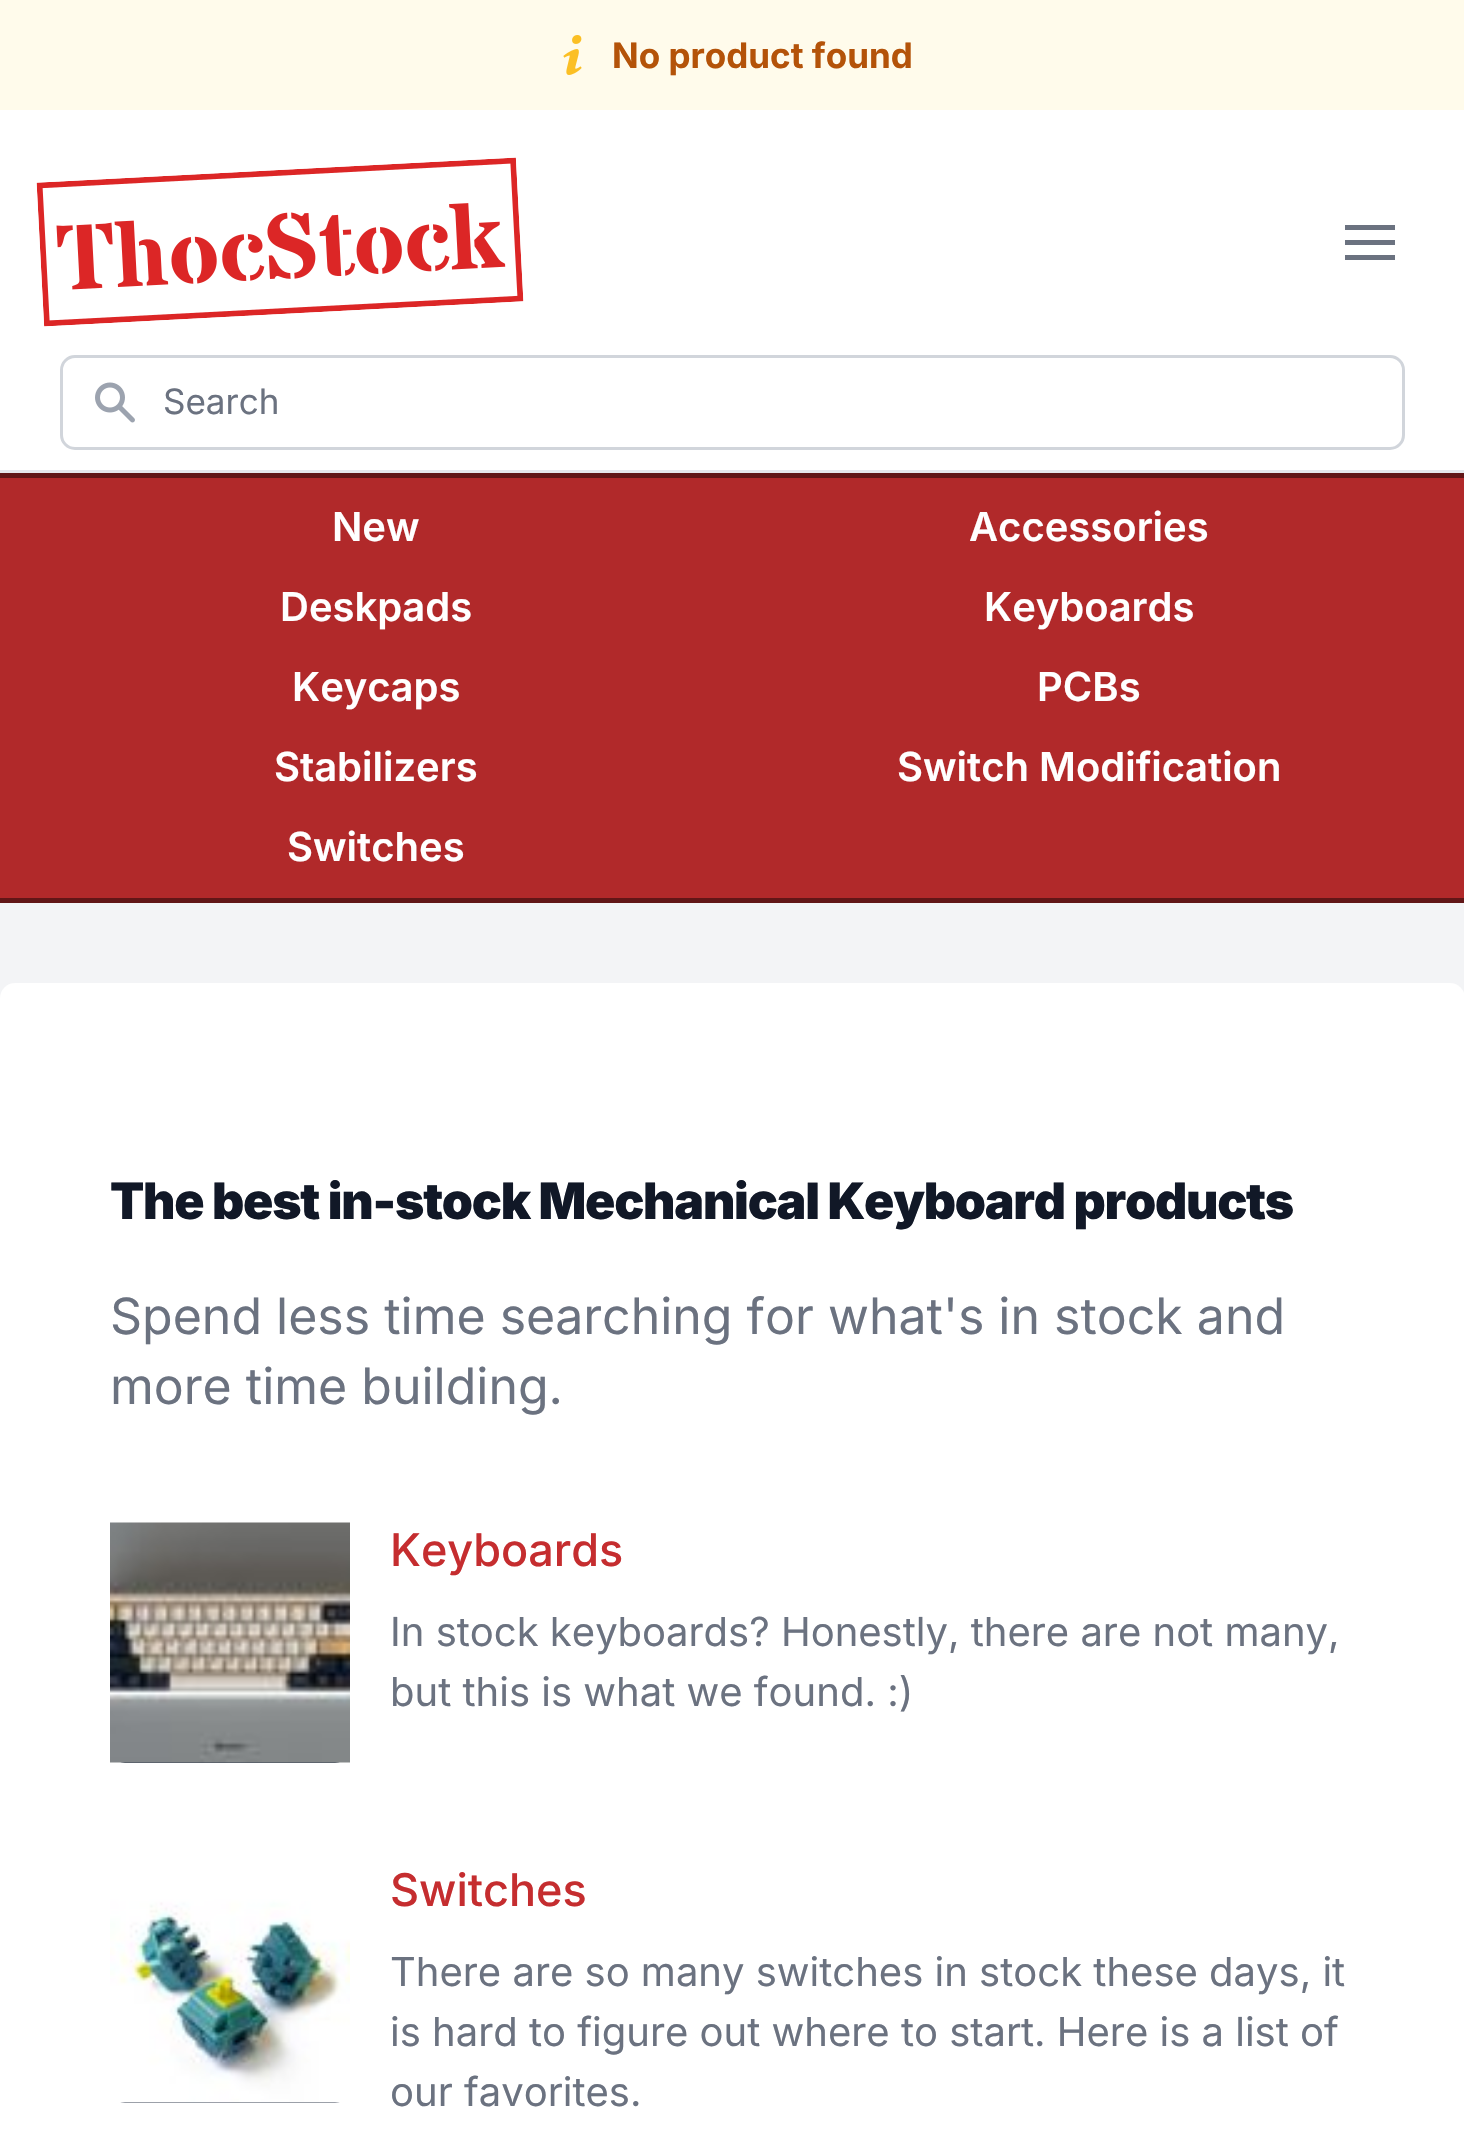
void draw(SkCanvas* canvas) {
    SkPaint paint;
    paint.setAntiAlias(true);
    auto spacedText = [&](const char* s, float x, float y, const SkFont& font, const SkPaint& ink, float letter, float word) {
        std::vector<SkGlyphID> glyphs(font.countText(s, strlen(s), SkTextEncoding::kUTF8));
        std::vector<float> xs(glyphs.size());
        font.textToGlyphs(s, strlen(s), SkTextEncoding::kUTF8, glyphs);
        font.getXPos(glyphs, xs, x);
        float extra = 0;
        for (size_t i = 0; i < glyphs.size(); i++) {
            xs[i] += extra;
            extra += letter + word * (glyphs[i] == font.unicharToGlyph(' '));
        }
        canvas->drawTextBlob(SkTextBlob::MakeFromPosHGlyphs(glyphs, xs, y, font), 0, 0, ink);
    };
    canvas->clear(0xFFF3F4F6);
    paint.setColor(0xFFFFFBEB);
    canvas->drawRect(SkRect::MakeXYWH(0, 0, 1464, 110), paint);
    canvas->drawImageRect(SkImages::DeferredFromEncodedData(SkData::MakeFromFileName("img1.png")), SkRect::MakeXYWH(563, 35, 19, 40), SkSamplingOptions());
    SkFont font1(fontMgr->matchFamilyStyle("Inter", SkFontStyle::Bold()), 35);
    font1.setSubpixel(true);
    paint.setColor(0xFFB45309);
    canvas->drawString("No product found", 612, 68, font1, paint);
    paint.setColor(0xFFFFFFFF);
    canvas->drawRect(SkRect::MakeXYWH(0, 110, 1464, 360), paint);
    paint.setColor(0xFFE5E7EB);
    canvas->drawRect(SkRect::MakeXYWH(0, 470, 1464, 3), paint);
    canvas->drawImageRect(SkImages::DeferredFromEncodedData(SkData::MakeFromFileName("img2.png")), SkRect::MakeXYWH(36, 157, 488, 170), SkSamplingOptions());
    paint.setColor(0xFF6B7280);
    canvas->drawPath(SkPathBuilder().moveTo(1345, 225).lineTo(1395, 225).lineTo(1395, 230).lineTo(1345, 230).close().moveTo(1345, 240).lineTo(1395, 240).lineTo(1395, 245).lineTo(1345, 245).close().moveTo(1345, 255).lineTo(1395, 255).lineTo(1395, 260).lineTo(1345, 260).close().detach(), paint);
    paint.setStyle(SkPaint::kStroke_Style);
    paint.setStrokeWidth(3);
    paint.setColor(0xFFD1D5DB);
    canvas->drawRoundRect(SkRect::MakeXYWH(61.5f, 356.5f, 1342, 92), 13.5f, 13.5f, paint);
    canvas->drawImageRect(SkImages::DeferredFromEncodedData(SkData::MakeFromFileName("img3.png")), SkRect::MakeXYWH(95, 382, 40, 41), SkSamplingOptions());
    SkFont font2(fontMgr->matchFamilyStyle("Inter", SkFontStyle::Normal()), 35);
    font2.setSubpixel(true);
    paint.setStyle(SkPaint::kFill_Style);
    paint.setColor(0xFF6B7280);
    canvas->drawString("Search", 163, 414, font2, paint);
    paint.setColor(0xFFB1292A);
    canvas->drawRect(SkRect::MakeXYWH(0, 478, 1464, 420), paint);
    paint.setColor(0xFF611617);
    canvas->drawRect(SkRect::MakeXYWH(0, 473, 1464, 5), paint);
    canvas->drawRect(SkRect::MakeXYWH(0, 898, 1464, 5), paint);
    SkFont font3(fontMgr->matchFamilyStyle("Inter", SkFontStyle(600, SkFontStyle::kNormal_Width, SkFontStyle::kUpright_Slant)), 40);
    font3.setSubpixel(true);
    paint.setColor(0xFFFFFFFF);
    canvas->drawString("New", 332, 541, font3, paint);
    canvas->drawString("Accessories", 969, 541, font3, paint);
    canvas->drawString("Deskpads", 280, 621, font3, paint);
    canvas->drawString("Keyboards", 984, 621, font3, paint);
    canvas->drawString("Keycaps", 292, 701, font3, paint);
    canvas->drawString("PCBs", 1037, 701, font3, paint);
    canvas->drawString("Stabilizers", 274, 781, font3, paint);
    canvas->drawString("Switch Modification", 897, 781, font3, paint);
    canvas->drawString("Switches", 287, 861, font3, paint);
    canvas->drawRoundRect(SkRect::MakeXYWH(0, 983, 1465, 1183), 15, 15, paint);
    SkFont font4(fontMgr->matchFamilyStyle("Inter", SkFontStyle(900, SkFontStyle::kNormal_Width, SkFontStyle::kUpright_Slant)), 50);
    font4.setSubpixel(true);
    paint.setColor(0xFF111827);
    spacedText("The best in-stock Mechanical Keyboard products", 110, 1219, font4, paint, -1.25f, 0);
    SkFont font5(fontMgr->matchFamilyStyle("Inter", SkFontStyle::Normal()), 50);
    font5.setSubpixel(true);
    paint.setColor(0xFF6B7280);
    canvas->drawString("Spend less time searching for what's in stock and", 110, 1334, font5, paint);
    canvas->drawString("more time building.", 110, 1404, font5, paint);
    paint.setColor(0xFF374151);
    canvas->drawRoundRect(SkRect::MakeXYWH(110, 1523, 240, 240), 15, 15, paint);
    canvas->drawImageRect(SkImages::DeferredFromEncodedData(SkData::MakeFromFileName("img4.png")), SkRect::MakeXYWH(110, 1522, 240, 241), SkSamplingOptions());
    SkFont font6(fontMgr->matchFamilyStyle("Inter", SkFontStyle(500, SkFontStyle::kNormal_Width, SkFontStyle::kUpright_Slant)), 45);
    font6.setSubpixel(true);
    paint.setColor(0xFFC52D2F);
    canvas->drawString("Keyboards", 390, 1566, font6, paint);
    SkFont font7(fontMgr->matchFamilyStyle("Inter", SkFontStyle::Normal()), 40);
    font7.setSubpixel(true);
    paint.setColor(0xFF6B7280);
    canvas->drawString("In stock keyboards? Honestly, there are not many,", 390, 1646, font7, paint);
    canvas->drawString("but this is what we found. :)", 390, 1706, font7, paint);
    paint.setColor(0xFF374151);
    canvas->drawRoundRect(SkRect::MakeXYWH(110, 1863, 240, 240), 15, 15, paint);
    canvas->drawImageRect(SkImages::DeferredFromEncodedData(SkData::MakeFromFileName("img5.png")), SkRect::MakeXYWH(110, 1863, 240, 240), SkSamplingOptions());
    paint.setColor(0xFFC52D2F);
    canvas->drawString("Switches", 390, 1906, font6, paint);
    paint.setColor(0xFF6B7280);
    canvas->drawString("There are so many switches in stock these days, it", 390, 1986, font7, paint);
    canvas->drawString("is hard to figure out where to start. Here is a list of", 390, 2046, font7, paint);
    canvas->drawString("our favorites.", 390, 2106, font7, paint);
}
